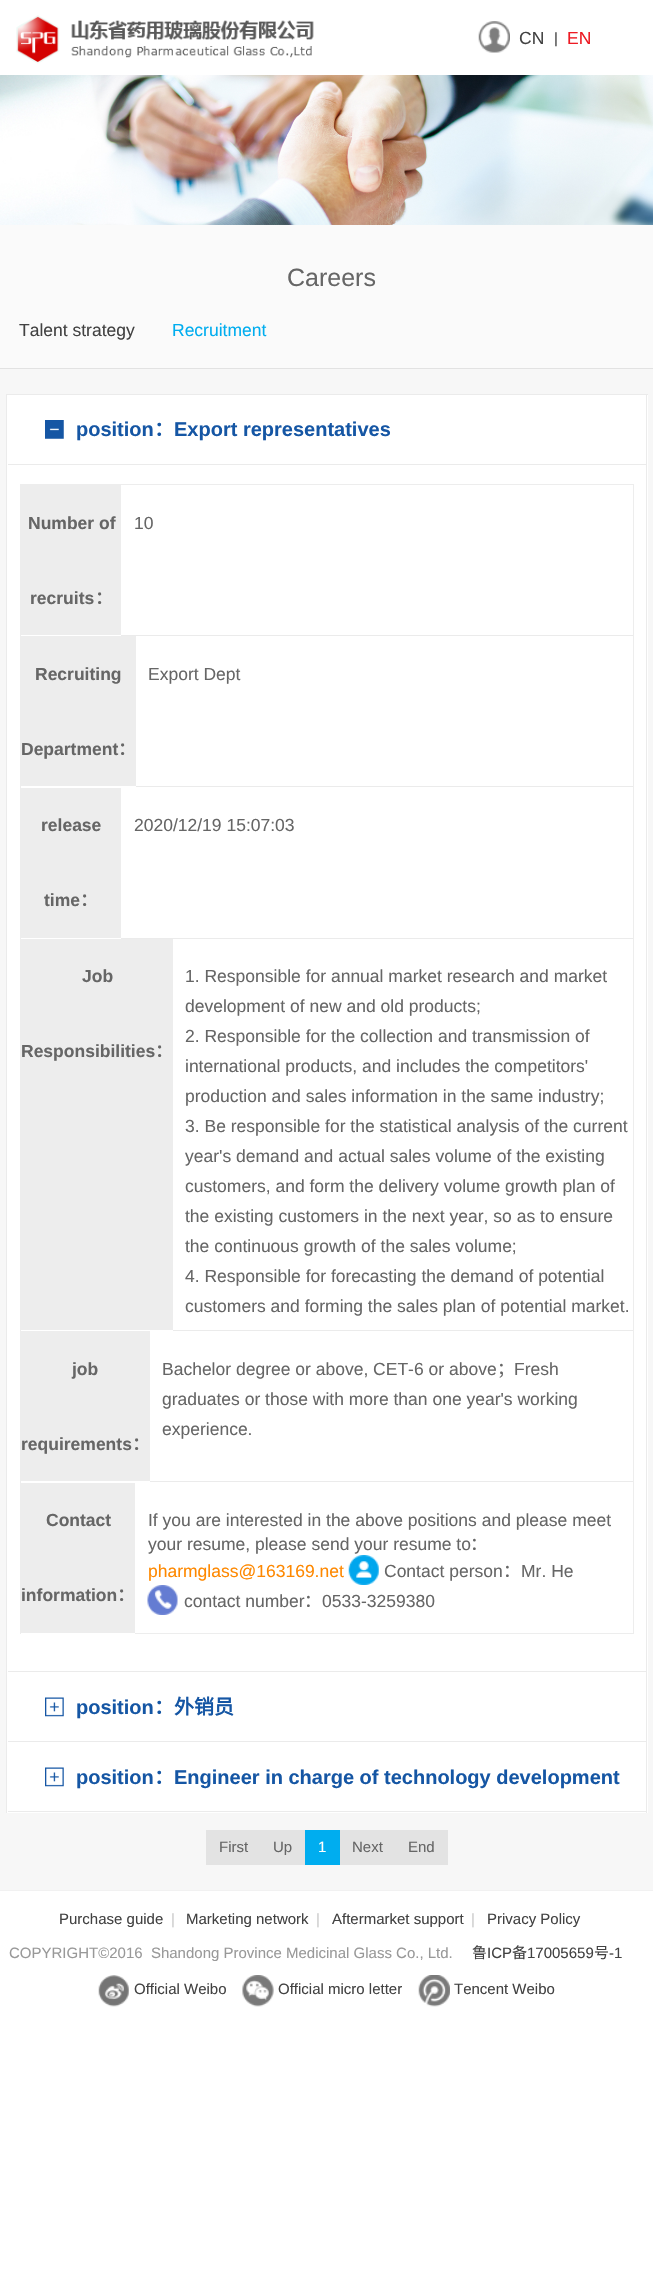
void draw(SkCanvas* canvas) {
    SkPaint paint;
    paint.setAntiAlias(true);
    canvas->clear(0xFFFFFFFF);
    canvas->drawImageRect(SkImages::DeferredFromEncodedData(SkData::MakeFromFileName("img1.png")), SkRect::MakeXYWH(16, 15, 298, 49), SkSamplingOptions());
    canvas->drawImageRect(SkImages::DeferredFromEncodedData(SkData::MakeFromFileName("img2.png")), SkRect::MakeXYWH(478, 21, 32, 32), SkSamplingOptions());
    SkFont font1(fontMgr->matchFamilyStyle("Liberation Sans", SkFontStyle::Normal()), 17.5f);
    font1.setSubpixel(true);
    paint.setColor(0xFF424242);
    canvas->drawString("CN", 519, 44, font1, paint);
    SkFont font2(fontMgr->matchFamilyStyle("Liberation Sans", SkFontStyle::Normal()), 15);
    font2.setSubpixel(true);
    canvas->drawString("|", 554, 43, font2, paint);
    paint.setColor(0xFFED1B24);
    canvas->drawString("EN", 567, 44, font1, paint);
    canvas->drawImageRect(SkImages::DeferredFromEncodedData(SkData::MakeFromFileName("img3.png")), SkRect::MakeXYWH(0, 75, 653, 150), SkSamplingOptions());
    paint.setColor(0xFFFAFAFA);
    canvas->drawRect(SkRect::MakeXYWH(0, 225, 653, 143), paint);
    paint.setColor(0xFFE2E2E2);
    canvas->drawRect(SkRect::MakeXYWH(0, 368, 653, 1), paint);
    SkFont font3(fontMgr->matchFamilyStyle("Liberation Sans", SkFontStyle::Normal()), 25);
    font3.setSubpixel(true);
    paint.setColor(0xFF666666);
    canvas->drawString("Careers", 287, 286, font3, paint);
    paint.setColor(0xFF424242);
    canvas->drawString("Talent strategy", 19, 336, font1, paint);
    paint.setColor(0xFF00ADEF);
    canvas->drawString("Recruitment", 172, 336, font1, paint);
    paint.setColor(0xFFF7F7F7);
    canvas->drawRect(SkRect::MakeXYWH(0, 369, 653, 1521), paint);
    paint.setColor(0xFFFFFFFF);
    canvas->drawRect(SkRect::MakeXYWH(7, 395, 641, 1418), paint);
    paint.setColor(0xFFEBEBEB);
    canvas->drawRect(SkRect::MakeXYWH(6, 394, 642, 1), paint);
    canvas->drawRect(SkRect::MakeXYWH(646, 394, 1, 1419), paint);
    canvas->drawRect(SkRect::MakeXYWH(6, 394, 1, 1419), paint);
    canvas->drawRect(SkRect::MakeXYWH(8, 464, 638, 1), paint);
    canvas->drawImageRect(SkImages::DeferredFromEncodedData(SkData::MakeFromFileName("img4.png")), SkRect::MakeXYWH(45, 420, 19, 19), SkSamplingOptions());
    SkFont font4(fontMgr->matchFamilyStyle("Liberation Sans", SkFontStyle::Bold()), 20);
    font4.setSubpixel(true);
    paint.setColor(0xFF1556A4);
    canvas->drawString("position", 76, 436, font4, paint);
    SkFont font5(fontMgr->matchFamilyStyle("Noto Sans CJK SC", SkFontStyle::Bold()), 20);
    font5.setSubpixel(true);
    canvas->drawString("：", 154, 436, font5, paint);
    canvas->drawString("Export representatives", 174, 436, font4, paint);
    paint.setColor(0xFFEBEBEB);
    canvas->drawRect(SkRect::MakeXYWH(8, 1671, 638, 1), paint);
    paint.setStyle(SkPaint::kStroke_Style);
    paint.setStrokeWidth(1);
    paint.setColor(0xFFEDEDED);
    canvas->drawRect(SkRect::MakeXYWH(20.5f, 484.5f, 613, 1149), paint);
    paint.setStyle(SkPaint::kFill_Style);
    paint.setColor(0xFFEBEBEB);
    canvas->drawRect(SkRect::MakeXYWH(121, 635, 512, 1), paint);
    paint.setColor(0xFFEDEDED);
    canvas->drawRect(SkRect::MakeXYWH(21, 485, 100, 150), paint);
    SkFont font6(fontMgr->matchFamilyStyle("Liberation Sans", SkFontStyle::Bold()), 17.5f);
    font6.setSubpixel(true);
    paint.setColor(0xFF666666);
    canvas->drawString("Number of", 28, 529, font6, paint);
    canvas->drawString("recruits", 30, 604, font6, paint);
    SkFont font7(fontMgr->matchFamilyStyle("Noto Sans CJK SC", SkFontStyle::Bold()), 17.5f);
    font7.setSubpixel(true);
    canvas->drawString("：", 95, 604, font7, paint);
    canvas->drawString("10", 134, 529, font1, paint);
    paint.setColor(0xFFEBEBEB);
    canvas->drawRect(SkRect::MakeXYWH(136, 786, 497, 1), paint);
    paint.setColor(0xFFEDEDED);
    canvas->drawRect(SkRect::MakeXYWH(21, 636, 115, 150), paint);
    paint.setColor(0xFF666666);
    canvas->drawString("Recruiting", 35, 680, font6, paint);
    canvas->drawString("Department", 21, 755, font6, paint);
    canvas->drawString("：", 118, 755, font7, paint);
    canvas->drawString("Export Dept", 148, 680, font1, paint);
    paint.setColor(0xFFEBEBEB);
    canvas->drawRect(SkRect::MakeXYWH(121, 938, 512, 1), paint);
    paint.setColor(0xFFEDEDED);
    canvas->drawRect(SkRect::MakeXYWH(21, 788, 100, 150), paint);
    paint.setColor(0xFF666666);
    canvas->drawString("release", 41, 831, font6, paint);
    canvas->drawString("time", 44, 906, font6, paint);
    canvas->drawString("：", 80, 906, font7, paint);
    canvas->drawString("2020/12/19 15:07:03", 134, 831, font1, paint);
    paint.setColor(0xFFEBEBEB);
    canvas->drawRect(SkRect::MakeXYWH(173, 1330, 460, 1), paint);
    paint.setColor(0xFFEDEDED);
    canvas->drawRect(SkRect::MakeXYWH(21, 939, 152, 391), paint);
    paint.setColor(0xFF666666);
    canvas->drawString("Job", 82, 982, font6, paint);
    canvas->drawString("Responsibilities", 21, 1057, font6, paint);
    canvas->drawString("：", 155, 1057, font7, paint);
    canvas->drawString("1. Responsible for annual market research and market", 185, 982, font1, paint);
    canvas->drawString("development of new and old products;", 185, 1012, font1, paint);
    canvas->drawString("2. Responsible for the collection and transmission of", 185, 1042, font1, paint);
    canvas->drawString("international products, and includes the competitors'", 185, 1072, font1, paint);
    canvas->drawString("production and sales information in the same industry;", 185, 1102, font1, paint);
    canvas->drawString("3. Be responsible for the statistical analysis of the current", 185, 1132, font1, paint);
    canvas->drawString("year's demand and actual sales volume of the existing", 185, 1162, font1, paint);
    canvas->drawString("customers, and form the delivery volume growth plan of", 185, 1192, font1, paint);
    canvas->drawString("the existing customers in the next year, so as to ensure", 185, 1222, font1, paint);
    canvas->drawString("the continuous growth of the sales volume;", 185, 1252, font1, paint);
    canvas->drawString("4. Responsible for forecasting the demand of potential", 185, 1282, font1, paint);
    canvas->drawString("customers and forming the sales plan of potential market.", 185, 1312, font1, paint);
    paint.setColor(0xFFEBEBEB);
    canvas->drawRect(SkRect::MakeXYWH(150, 1481, 483, 1), paint);
    paint.setColor(0xFFEDEDED);
    canvas->drawRect(SkRect::MakeXYWH(21, 1331, 129, 150), paint);
    paint.setColor(0xFF666666);
    canvas->drawString("job", 72, 1375, font6, paint);
    canvas->drawString("requirements", 21, 1450, font6, paint);
    canvas->drawString("：", 132, 1450, font7, paint);
    canvas->drawString("Bachelor degree or above, CET-6 or above", 162, 1375, font1, paint);
    SkFont font8(fontMgr->matchFamilyStyle("Noto Sans CJK SC", SkFontStyle::Normal()), 17.5f);
    font8.setSubpixel(true);
    canvas->drawString("；", 497, 1375, font8, paint);
    canvas->drawString("Fresh", 514, 1375, font1, paint);
    canvas->drawString("graduates or those with more than one year's working", 162, 1405, font1, paint);
    canvas->drawString("experience.", 162, 1435, font1, paint);
    paint.setColor(0xFFEDEDED);
    canvas->drawRect(SkRect::MakeXYWH(21, 1483, 114, 150), paint);
    paint.setColor(0xFF666666);
    canvas->drawString("Contact", 46, 1526, font6, paint);
    canvas->drawString("information", 21, 1601, font6, paint);
    canvas->drawString("：", 117, 1601, font7, paint);
    paint.setColor(0xFFFFFFFF);
    canvas->drawRect(SkRect::MakeXYWH(21, 1633, 114, 1), paint);
    paint.setColor(0xFF666666);
    canvas->drawString("If you are interested in the above positions and please meet", 148, 1526, font1, paint);
    canvas->drawString("your resume, please send your resume to", 148, 1550, font1, paint);
    canvas->drawString("：", 470, 1550, font8, paint);
    paint.setColor(0xFFFE8800);
    canvas->drawString("pharmglass@163169.net", 148, 1577, font1, paint);
    canvas->drawImageRect(SkImages::DeferredFromEncodedData(SkData::MakeFromFileName("img5.png")), SkRect::MakeXYWH(348, 1555, 31, 30), SkSamplingOptions());
    paint.setColor(0xFF666666);
    canvas->drawString("Contact person", 384, 1577, font1, paint);
    canvas->drawString("：", 503, 1577, font8, paint);
    canvas->drawString("Mr. He", 521, 1577, font1, paint);
    canvas->drawImageRect(SkImages::DeferredFromEncodedData(SkData::MakeFromFileName("img6.png")), SkRect::MakeXYWH(147, 1585, 31, 30), SkSamplingOptions());
    canvas->drawString("contact number", 184, 1607, font1, paint);
    canvas->drawString("：", 304, 1607, font8, paint);
    canvas->drawString("0533-3259380", 322, 1607, font1, paint);
    paint.setColor(0xFFEBEBEB);
    canvas->drawRect(SkRect::MakeXYWH(8, 1741, 638, 1), paint);
    canvas->drawImageRect(SkImages::DeferredFromEncodedData(SkData::MakeFromFileName("img7.png")), SkRect::MakeXYWH(45, 1697, 19, 20), SkSamplingOptions());
    paint.setColor(0xFF1556A4);
    canvas->drawString("position", 76, 1714, font4, paint);
    canvas->drawString("：外销员", 154, 1714, font5, paint);
    paint.setColor(0xFFEBEBEB);
    canvas->drawRect(SkRect::MakeXYWH(8, 1811, 638, 1), paint);
    canvas->drawImageRect(SkImages::DeferredFromEncodedData(SkData::MakeFromFileName("img7.png")), SkRect::MakeXYWH(45, 1767, 19, 20), SkSamplingOptions());
    paint.setColor(0xFF1556A4);
    canvas->drawString("position", 76, 1784, font4, paint);
    canvas->drawString("：", 154, 1784, font5, paint);
    canvas->drawString("Engineer in charge of technology development", 174, 1784, font4, paint);
    paint.setColor(0xFFE3E3E3);
    canvas->drawRect(SkRect::MakeXYWH(206, 1830, 99, 35), paint);
    paint.setColor(0xFF666666);
    canvas->drawString("First", 219, 1852, font2, paint);
    canvas->drawString("Up", 273, 1852, font2, paint);
    paint.setColor(0xFF00ADEF);
    canvas->drawRect(SkRect::MakeXYWH(305, 1830, 35, 35), paint);
    paint.setColor(0xFFFFFFFF);
    canvas->drawString("1", 318, 1852, font2, paint);
    paint.setColor(0xFFE3E3E3);
    canvas->drawRect(SkRect::MakeXYWH(340, 1830, 108, 35), paint);
    paint.setColor(0xFF666666);
    canvas->drawString("Next", 352, 1852, font2, paint);
    canvas->drawString("End", 408, 1852, font2, paint);
    paint.setColor(0xFFF1F1F1);
    canvas->drawRect(SkRect::MakeXYWH(0, 1890, 653, 1), paint);
    paint.setColor(0xFF424242);
    canvas->drawString("Purchase guide", 59, 1924, font2, paint);
    paint.setColor(0xFFCCCCCC);
    canvas->drawString("|", 171, 1924, font2, paint);
    paint.setColor(0xFF424242);
    canvas->drawString("Marketing network", 186, 1924, font2, paint);
    paint.setColor(0xFFCCCCCC);
    canvas->drawString("|", 316, 1924, font2, paint);
    paint.setColor(0xFF424242);
    canvas->drawString("Aftermarket support", 332, 1924, font2, paint);
    paint.setColor(0xFFCCCCCC);
    canvas->drawString("|", 471, 1924, font2, paint);
    paint.setColor(0xFF424242);
    canvas->drawString("Privacy Policy", 487, 1924, font2, paint);
    paint.setColor(0xFF999999);
    canvas->drawString("COPYRIGHT©2016  Shandong Province Medicinal Glass Co., Ltd.", 9, 1958, font2, paint);
    SkFont font9(fontMgr->matchFamilyStyle("Noto Sans CJK SC", SkFontStyle::Normal()), 15);
    font9.setSubpixel(true);
    paint.setColor(0xFF424242);
    canvas->drawString("鲁", 472, 1958, font9, paint);
    canvas->drawString("ICP", 487, 1958, font2, paint);
    canvas->drawString("备", 512, 1958, font9, paint);
    canvas->drawString("17005659", 527, 1958, font2, paint);
    canvas->drawString("号", 594, 1958, font9, paint);
    canvas->drawString("-1", 609, 1958, font2, paint);
    canvas->drawImageRect(SkImages::DeferredFromEncodedData(SkData::MakeFromFileName("img8.png")), SkRect::MakeXYWH(98, 1975, 31, 32), SkSamplingOptions());
    canvas->drawString("Official Weibo", 134, 1994, font2, paint);
    canvas->drawImageRect(SkImages::DeferredFromEncodedData(SkData::MakeFromFileName("img9.png")), SkRect::MakeXYWH(242, 1975, 32, 32), SkSamplingOptions());
    canvas->drawString("Official micro letter", 278, 1994, font2, paint);
    canvas->drawImageRect(SkImages::DeferredFromEncodedData(SkData::MakeFromFileName("img10.png")), SkRect::MakeXYWH(418, 1975, 32, 32), SkSamplingOptions());
    canvas->drawString("Tencent Weibo", 454, 1994, font2, paint);
}
